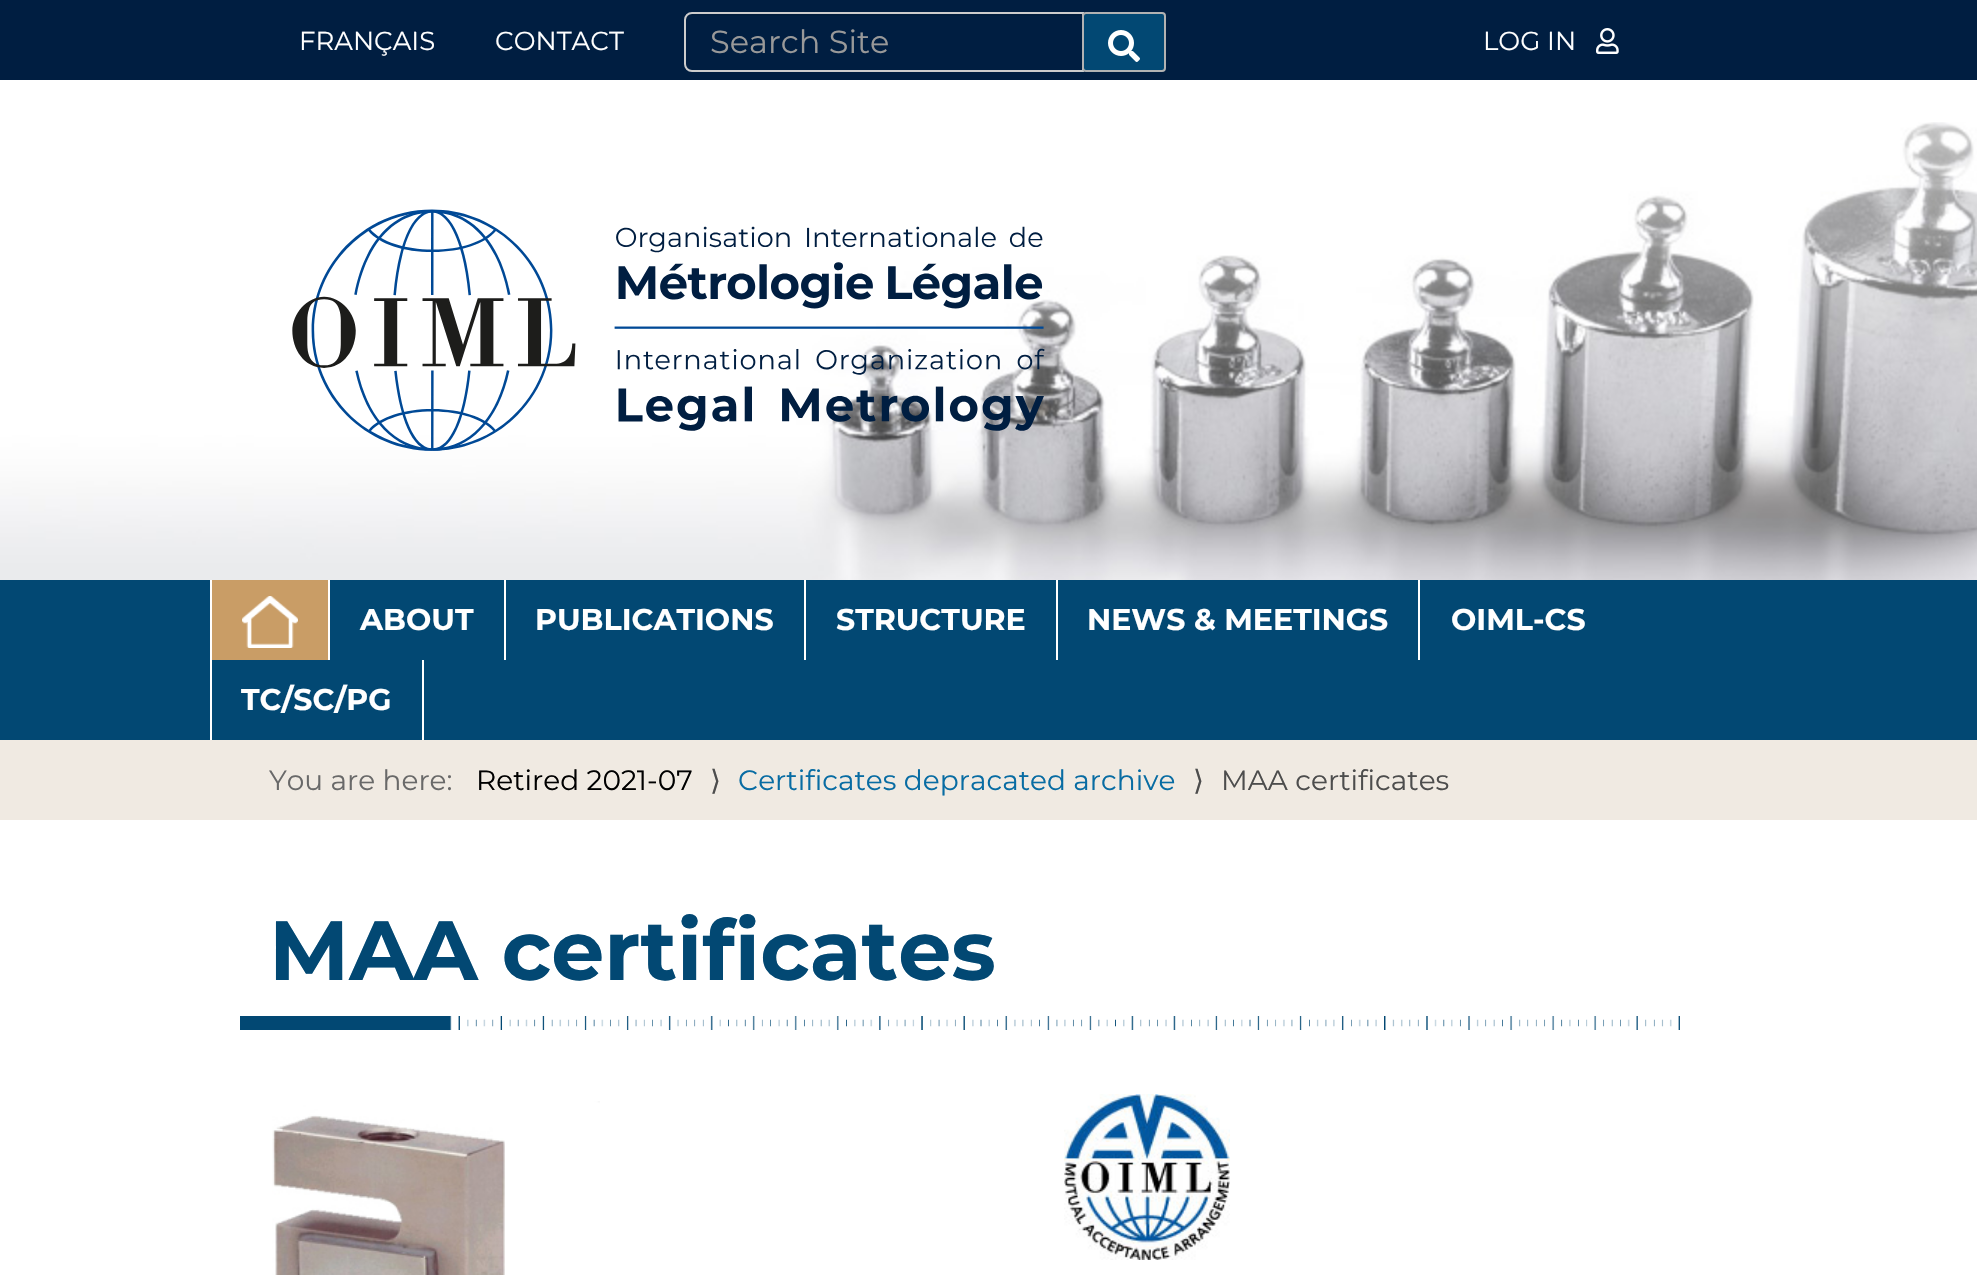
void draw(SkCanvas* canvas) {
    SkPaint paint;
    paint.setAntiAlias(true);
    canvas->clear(0xFFFFFFFF);
    paint.setColor(0xFF001E41);
    canvas->drawRect(SkRect::MakeXYWH(0, 0, 1977, 80), paint);
    SkFont font1(fontMgr->matchFamilyStyle("Montserrat", SkFontStyle::Normal()), 26);
    font1.setSubpixel(true);
    paint.setColor(0xFFFFFFFF);
    canvas->drawString("FRANÇAIS", 299, 50, font1, paint);
    canvas->drawString("CONTACT", 495, 50, font1, paint);
    paint.setColor(0xFF001C3C);
    canvas->drawPath(SkPathBuilder().moveTo(692, 16).lineTo(1082, 16).lineTo(1082, 14).lineTo(692, 14).cubicTo(687, 14, 686, 18, 686, 22).cubicTo(686, 19, 689, 16, 692, 16).close().detach(), paint);
    paint.setStyle(SkPaint::kStroke_Style);
    paint.setStrokeWidth(2);
    paint.setColor(0xFFCCCCCC);
    canvas->drawPath(SkPathBuilder().moveTo(692, 13).lineTo(1083, 13).lineTo(1083, 71).lineTo(692, 71).cubicTo(688, 71, 685, 68, 685, 64).lineTo(685, 20).cubicTo(685, 16, 688, 13, 692, 13).close().detach(), paint);
    SkFont font2(fontMgr->matchFamilyStyle("Montserrat", SkFontStyle::Normal()), 32);
    font2.setSubpixel(true);
    paint.setStyle(SkPaint::kFill_Style);
    paint.setColor(0xFF999999);
    canvas->drawString("Search Site", 710, 53, font2, paint);
    paint.setColor(0xFF024873);
    canvas->drawRoundRect(SkRect::MakeXYWH(1083, 13, 82, 58), 3, 3, paint);
    paint.setStyle(SkPaint::kStroke_Style);
    paint.setColor(0xFFB2B2B2);
    canvas->drawRoundRect(SkRect::MakeXYWH(1083, 13, 82, 58), 3, 3, paint);
    canvas->drawImageRect(SkImages::DeferredFromEncodedData(SkData::MakeFromFileName("img1.png")), SkRect::MakeXYWH(1108, 30, 32, 32), SkSamplingOptions());
    paint.setStyle(SkPaint::kFill_Style);
    paint.setColor(0xFFFFFFFF);
    canvas->drawString("LOG IN", 1483, 50, font1, paint);
    canvas->drawImageRect(SkImages::DeferredFromEncodedData(SkData::MakeFromFileName("img2.png")), SkRect::MakeXYWH(1596, 28, 23, 26), SkSamplingOptions());
    canvas->drawImageRect(SkImages::DeferredFromEncodedData(SkData::MakeFromFileName("img3.png")), SkRect::MakeXYWH(0, 122, 1977, 458), SkSamplingOptions());
    canvas->drawImageRect(SkImages::DeferredFromEncodedData(SkData::MakeFromFileName("img4.png")), SkRect::MakeXYWH(292, 209, 753, 242), SkSamplingOptions());
    paint.setColor(0xFF024873);
    canvas->drawRect(SkRect::MakeXYWH(0, 580, 1977, 160), paint);
    paint.setColor(0xFFC99D66);
    canvas->drawRect(SkRect::MakeXYWH(212, 580, 116, 80), paint);
    paint.setColor(0xFFFFFFFF);
    canvas->drawRect(SkRect::MakeXYWH(210, 580, 2, 160), paint);
    canvas->drawImageRect(SkImages::DeferredFromEncodedData(SkData::MakeFromFileName("img5.png")), SkRect::MakeXYWH(242, 596, 56, 52), SkSamplingOptions());
    canvas->drawRect(SkRect::MakeXYWH(328, 580, 2, 80), paint);
    SkFont font3(fontMgr->matchFamilyStyle("Montserrat", SkFontStyle::Bold()), 30);
    font3.setSubpixel(true);
    canvas->drawString("ABOUT", 360, 630, font3, paint);
    canvas->drawRect(SkRect::MakeXYWH(504, 580, 2, 80), paint);
    canvas->drawString("PUBLICATIONS", 535, 630, font3, paint);
    canvas->drawRect(SkRect::MakeXYWH(804, 580, 2, 80), paint);
    canvas->drawString("STRUCTURE", 836, 630, font3, paint);
    canvas->drawRect(SkRect::MakeXYWH(1056, 580, 2, 80), paint);
    canvas->drawString("NEWS & MEETINGS", 1087, 630, font3, paint);
    canvas->drawRect(SkRect::MakeXYWH(1418, 580, 2, 80), paint);
    canvas->drawString("OIML-CS", 1451, 630, font3, paint);
    canvas->drawRect(SkRect::MakeXYWH(422, 660, 2, 80), paint);
    canvas->drawString("TC/SC/PG", 241, 710, font3, paint);
    paint.setColor(0xFFF0EAE2);
    canvas->drawRect(SkRect::MakeXYWH(0, 740, 1977, 80), paint);
    SkFont font4(fontMgr->matchFamilyStyle("Montserrat", SkFontStyle::Normal()), 28);
    font4.setSubpixel(true);
    paint.setColor(0xFF696969);
    canvas->drawString("You are here:", 269, 790, font4, paint);
    paint.setColor(0xFF000000);
    canvas->drawString("Retired 2021-07", 476, 790, font4, paint);
    SkFont font5(fontMgr->matchFamilyStyle("DejaVu Sans", SkFontStyle::Normal()), 28);
    font5.setSubpixel(true);
    paint.setColor(0xFF4D4D4D);
    canvas->drawString("⟩", 710, 790, font5, paint);
    paint.setColor(0xFF086CA3);
    canvas->drawString("Certificates depracated archive", 738, 790, font4, paint);
    paint.setColor(0xFF4D4D4D);
    canvas->drawString("⟩", 1193, 790, font5, paint);
    canvas->drawString("MAA certificates", 1221, 790, font4, paint);
    SkFont font6(fontMgr->matchFamilyStyle("Montserrat", SkFontStyle::Bold()), 84);
    font6.setSubpixel(true);
    paint.setColor(0xFF024873);
    canvas->drawString("MAA certificates", 269, 980, font6, paint);
    canvas->drawImageRect(SkImages::DeferredFromEncodedData(SkData::MakeFromFileName("img6.png")), SkRect::MakeXYWH(240, 1016, 1440, 14), SkSamplingOptions());
    canvas->drawImageRect(SkImages::DeferredFromEncodedData(SkData::MakeFromFileName("img7.png")), SkRect::MakeXYWH(272, 1101, 328, 174), SkSamplingOptions());
    canvas->drawImageRect(SkImages::DeferredFromEncodedData(SkData::MakeFromFileName("img8.png")), SkRect::MakeXYWH(1064, 1094, 166, 166), SkSamplingOptions());
}
